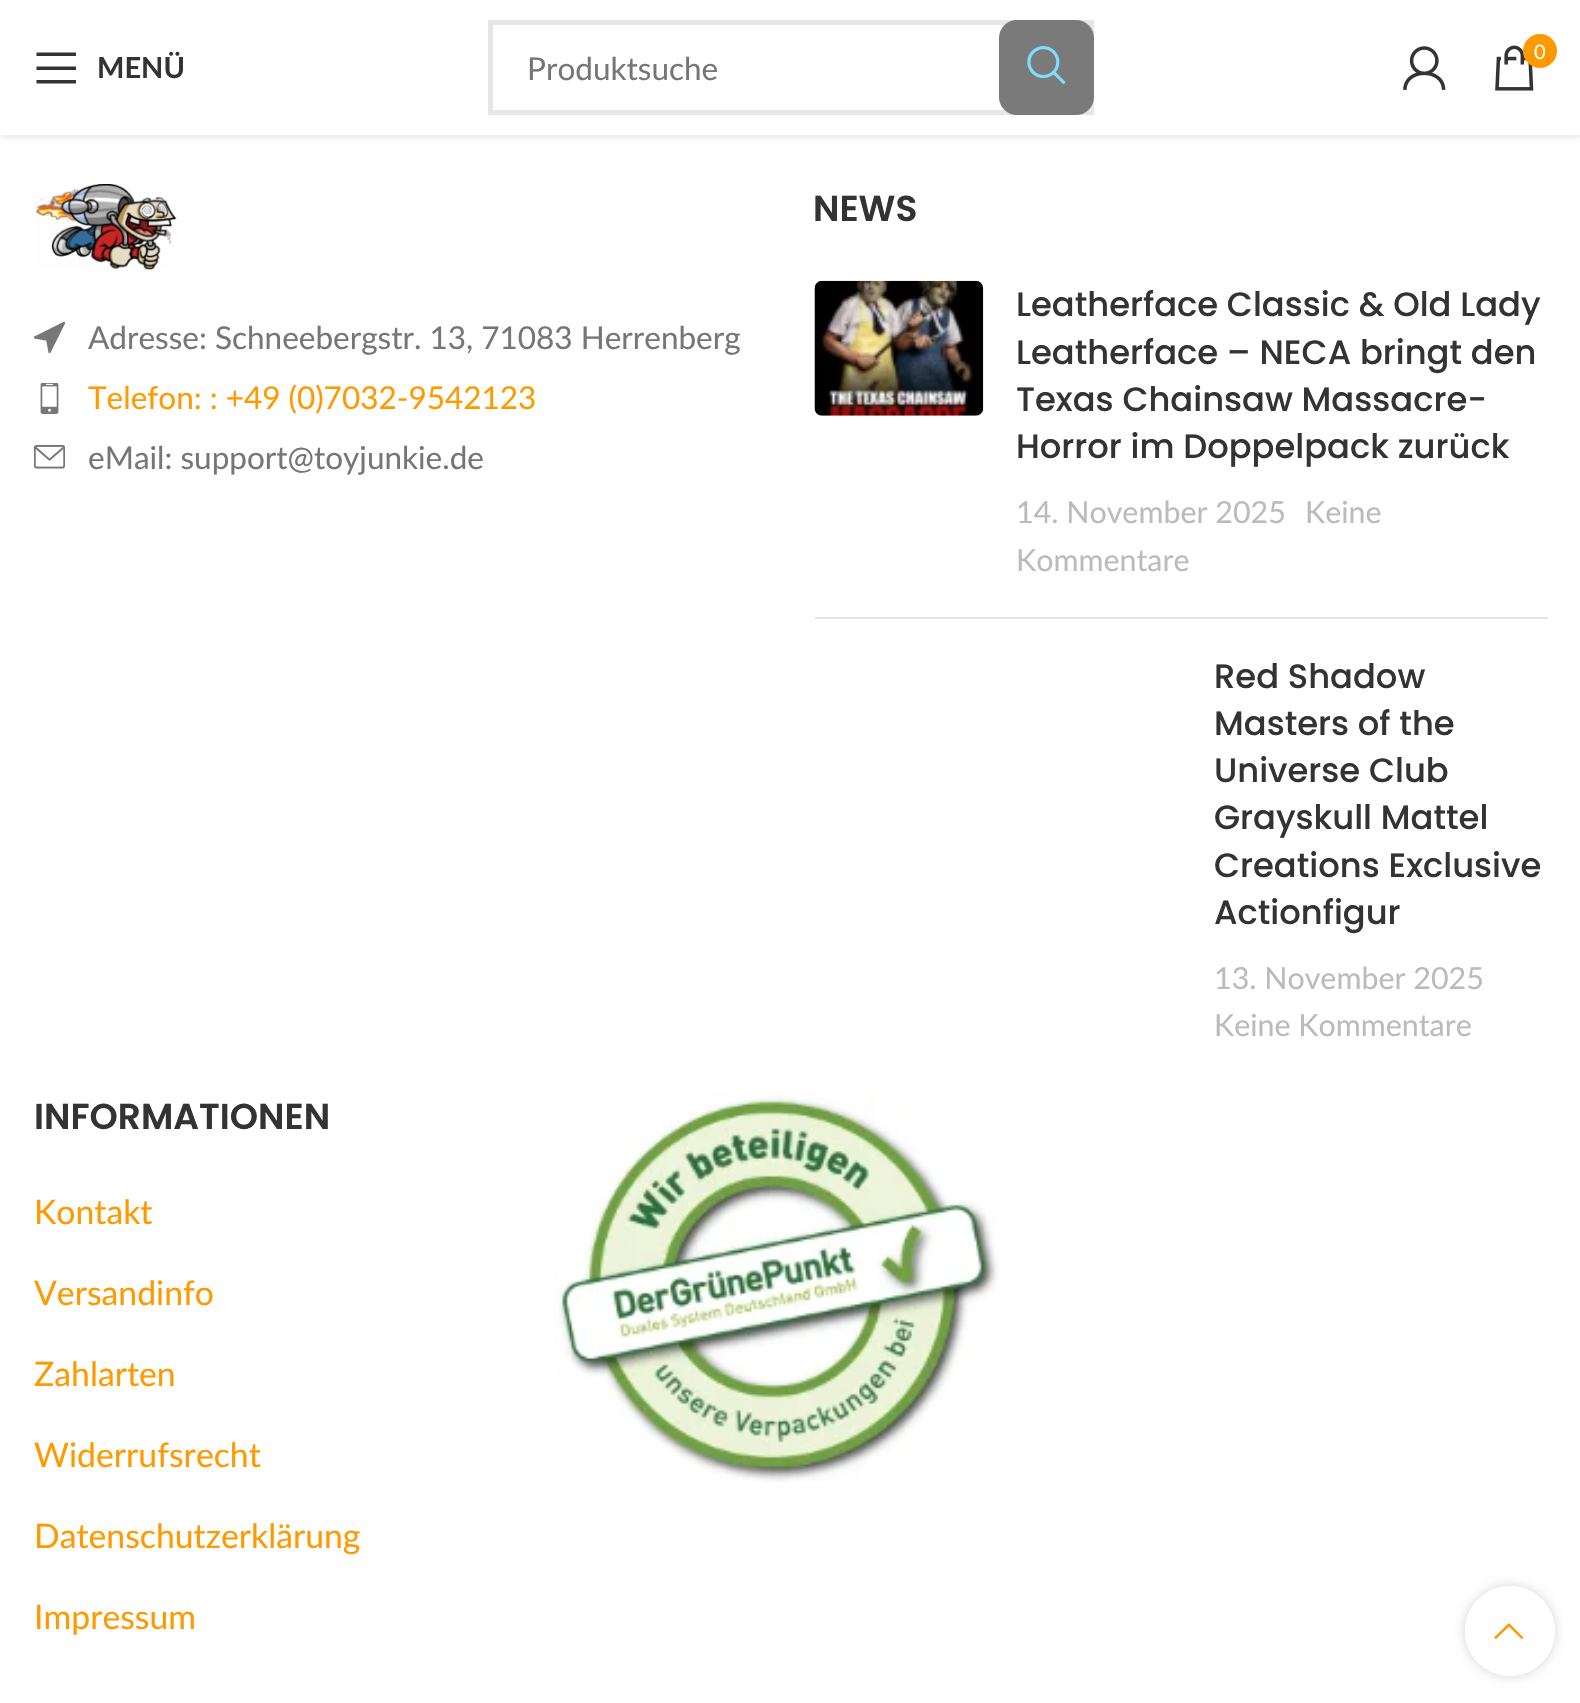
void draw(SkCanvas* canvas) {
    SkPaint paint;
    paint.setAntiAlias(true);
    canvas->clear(0xFFFFFFFF);
    paint.setColor(0x1A000000);
    paint.setMaskFilter(SkMaskFilter::MakeBlur(kNormal_SkBlurStyle, 3.5f));
    canvas->drawRect(SkRect::MakeXYWH(0, 2, 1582, 135), paint);
    paint.setMaskFilter(nullptr);
    paint.setColor(0xFFFFFFFF);
    canvas->drawRect(SkRect::MakeXYWH(0, 0, 1580, 135), paint);
    paint.setColor(0xFF333333);
    canvas->drawPath(SkPathBuilder().moveTo(36.5f, 56).lineTo(76, 56).lineTo(76, 52.5f).lineTo(36.5f, 52.5f).close().moveTo(36.5f, 70).lineTo(76, 70).lineTo(76, 66.5f).lineTo(36.5f, 66.5f).close().moveTo(36.5f, 83.5f).lineTo(76, 83.5f).lineTo(76, 80).lineTo(36.5f, 80).close().detach(), paint);
    SkFont font1(fontMgr->matchFamilyStyle("Lato", SkFontStyle::Bold()), 29);
    font1.setSubpixel(true);
    canvas->drawString("MENÜ", 97, 78, font1, paint);
    paint.setStyle(SkPaint::kStroke_Style);
    paint.setStrokeWidth(5);
    paint.setColor(0xFFE6E6E6);
    canvas->drawRect(SkRect::MakeXYWH(490.5f, 22.5f, 601, 90), paint);
    SkFont font2(fontMgr->matchFamilyStyle("Lato", SkFontStyle::Normal()), 31.5f);
    font2.setSubpixel(true);
    paint.setStyle(SkPaint::kFill_Style);
    paint.setColor(0xFF767676);
    canvas->drawString("Produktsuche", 527, 80, font2, paint);
    paint.setColor(0xFF7A7A7A);
    canvas->drawRoundRect(SkRect::MakeXYWH(999, 20, 95, 95), 18, 18, paint);
    canvas->drawImageRect(SkImages::DeferredFromEncodedData(SkData::MakeFromFileName("img1.png")), SkRect::MakeXYWH(1027, 46, 39, 39), SkSamplingOptions());
    canvas->drawImageRect(SkImages::DeferredFromEncodedData(SkData::MakeFromFileName("img2.png")), SkRect::MakeXYWH(1403, 46, 43, 44), SkSamplingOptions());
    canvas->drawImageRect(SkImages::DeferredFromEncodedData(SkData::MakeFromFileName("img3.png")), SkRect::MakeXYWH(1495, 45, 39, 46), SkSamplingOptions());
    paint.setColor(0xFFFF9900);
    canvas->drawCircle(1540, 51, 17, paint);
    SkFont font3(fontMgr->matchFamilyStyle("Lato", SkFontStyle::Normal()), 20);
    font3.setSubpixel(true);
    paint.setColor(0xFFFFFFFF);
    canvas->drawString("0", 1534, 59, font3, paint);
    canvas->drawImageRect(SkImages::DeferredFromEncodedData(SkData::MakeFromFileName("img4.png")), SkRect::MakeXYWH(35, 184, 142, 86), SkSamplingOptions());
    canvas->drawImageRect(SkImages::DeferredFromEncodedData(SkData::MakeFromFileName("img5.png")), SkRect::MakeXYWH(34, 322, 31, 31), SkSamplingOptions());
    paint.setColor(0xFF767676);
    canvas->drawString("Adresse: Schneebergstr. 13, 71083 Herrenberg", 88, 349, font2, paint);
    canvas->drawImageRect(SkImages::DeferredFromEncodedData(SkData::MakeFromFileName("img6.png")), SkRect::MakeXYWH(40, 383, 19, 31), SkSamplingOptions());
    paint.setColor(0xFFFF9900);
    canvas->drawString("Telefon: : +49 (0)7032-9542123", 88, 409, font2, paint);
    canvas->drawImageRect(SkImages::DeferredFromEncodedData(SkData::MakeFromFileName("img7.png")), SkRect::MakeXYWH(34, 444, 31, 25), SkSamplingOptions());
    paint.setColor(0xFF767676);
    canvas->drawString("eMail: support@toyjunkie.de", 88, 469, font2, paint);
    SkFont font4(fontMgr->matchFamilyStyle("Poppins", SkFontStyle(600, SkFontStyle::kNormal_Width, SkFontStyle::kUpright_Slant)), 36);
    font4.setSubpixel(true);
    paint.setColor(0xFF333333);
    canvas->drawString("NEWS", 813, 221, font4, paint);
    paint.setColor(0xFFE4E4E4);
    canvas->drawRect(SkRect::MakeXYWH(815, 617, 733, 2), paint);
    canvas->drawImageRect(SkImages::DeferredFromEncodedData(SkData::MakeFromFileName("img8.png")), SkRect::MakeXYWH(814, 280, 170, 136), SkSamplingOptions());
    SkFont font5(fontMgr->matchFamilyStyle("Poppins", SkFontStyle(500, SkFontStyle::kNormal_Width, SkFontStyle::kUpright_Slant)), 33.75f);
    font5.setSubpixel(true);
    paint.setColor(0xFF333333);
    canvas->drawString("Leatherface Classic & Old Lady", 1016, 316, font5, paint);
    canvas->drawString("Leatherface – NECA bringt den", 1016, 364, font5, paint);
    canvas->drawString("Texas Chainsaw Massacre-", 1016, 411, font5, paint);
    canvas->drawString("Horror im Doppelpack zurück", 1016, 458, font5, paint);
    SkFont font6(fontMgr->matchFamilyStyle("Lato", SkFontStyle::Normal()), 30.4f);
    font6.setSubpixel(true);
    paint.setColor(0xFFBBBBBB);
    canvas->drawString("14. November 2025", 1016, 523, font6, paint);
    canvas->drawString("Keine", 1305, 523, font6, paint);
    canvas->drawString("Kommentare", 1016, 571, font6, paint);
    paint.setColor(0xFF333333);
    canvas->drawString("Red Shadow", 1214, 688, font5, paint);
    canvas->drawString("Masters of the", 1214, 735, font5, paint);
    canvas->drawString("Universe Club", 1214, 782, font5, paint);
    canvas->drawString("Grayskull Mattel", 1214, 829, font5, paint);
    canvas->drawString("Creations Exclusive", 1214, 877, font5, paint);
    canvas->drawString("Actionfigur", 1214, 924, font5, paint);
    paint.setColor(0xFFBBBBBB);
    canvas->drawString("13. November 2025", 1214, 989, font6, paint);
    canvas->drawString("Keine Kommentare", 1214, 1036, font6, paint);
    paint.setColor(0xFF333333);
    canvas->drawString("INFORMATIONEN", 34, 1129, font4, paint);
    SkFont font7(fontMgr->matchFamilyStyle("Lato", SkFontStyle::Normal()), 33.75f);
    font7.setSubpixel(true);
    paint.setColor(0xFFFF9900);
    canvas->drawString("Kontakt", 34, 1224, font7, paint);
    canvas->drawString("Versandinfo", 34, 1305, font7, paint);
    canvas->drawString("Zahlarten", 34, 1386, font7, paint);
    canvas->drawString("Widerrufsrecht", 34, 1467, font7, paint);
    canvas->drawString("Datenschutzerklärung", 34, 1548, font7, paint);
    canvas->drawString("Impressum", 34, 1629, font7, paint);
    canvas->drawImageRect(SkImages::DeferredFromEncodedData(SkData::MakeFromFileName("img9.png")), SkRect::MakeXYWH(553, 1093, 446, 390), SkSamplingOptions());
    canvas->save();
    canvas->clipPath(SkPathBuilder(SkPathFillType::kEvenOdd).moveTo(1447, 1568).lineTo(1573, 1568).lineTo(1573, 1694).lineTo(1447, 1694).close().moveTo(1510, 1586).cubicTo(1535, 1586, 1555, 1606, 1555, 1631).cubicTo(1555, 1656, 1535, 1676, 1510, 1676).cubicTo(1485, 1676, 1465, 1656, 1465, 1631).cubicTo(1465, 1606, 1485, 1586, 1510, 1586).close().detach(), true);
    paint.setColor(0x2B000000);
    paint.setMaskFilter(SkMaskFilter::MakeBlur(kNormal_SkBlurStyle, 5.5f));
    canvas->drawRoundRect(SkRect::MakeXYWH(1465, 1586, 90, 90), 45, 45, paint);
    paint.setMaskFilter(nullptr);
    canvas->restore();
    paint.setColor(0xE6FFFFFF);
    canvas->drawCircle(1510, 1631, 45, paint);
    paint.setColor(0xFFFF9900);
    canvas->drawPath(SkPathBuilder().moveTo(1521.5f, 1639).lineTo(1523.5f, 1637.5f).lineTo(1509, 1623).lineTo(1494, 1637.5f).lineTo(1496, 1639).lineTo(1509, 1626.5f).close().detach(), paint);
}
